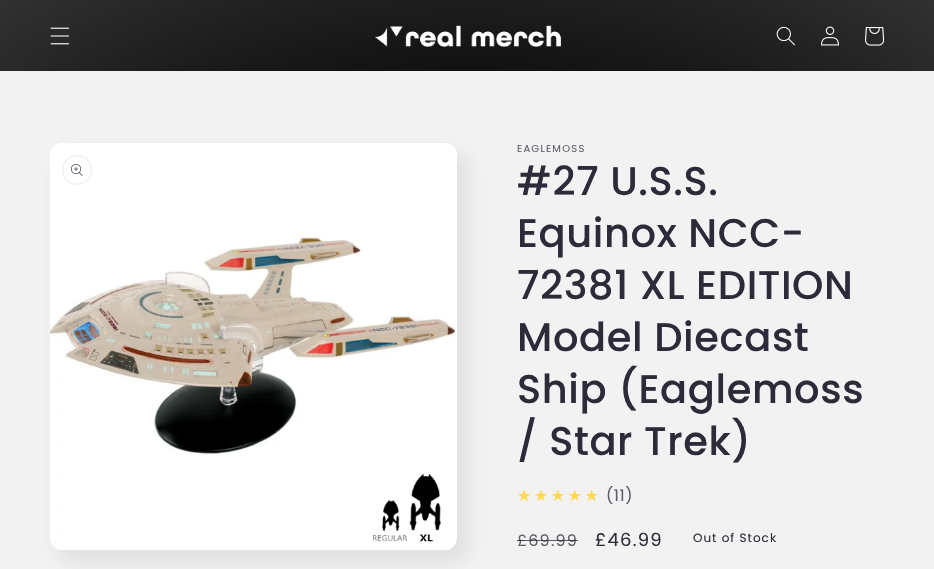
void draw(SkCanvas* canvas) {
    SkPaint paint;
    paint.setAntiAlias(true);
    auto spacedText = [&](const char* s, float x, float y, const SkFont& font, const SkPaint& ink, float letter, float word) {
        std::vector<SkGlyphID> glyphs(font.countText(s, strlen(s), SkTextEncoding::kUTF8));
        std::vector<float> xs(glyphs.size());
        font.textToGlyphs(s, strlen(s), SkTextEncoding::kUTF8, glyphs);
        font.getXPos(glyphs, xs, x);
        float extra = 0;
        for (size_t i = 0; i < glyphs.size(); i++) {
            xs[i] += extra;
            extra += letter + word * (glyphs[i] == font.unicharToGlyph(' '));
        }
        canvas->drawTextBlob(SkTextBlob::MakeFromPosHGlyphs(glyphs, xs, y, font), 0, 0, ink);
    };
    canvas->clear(0xFFF2F2F2);
    {
        const SkColor colors[] = {0xFF000000, 0xFF09090B, 0xFF313131};
        const float stops[] = {0, 0.4f, 1};
        SkMatrix m = SkMatrix::Translate(467, 285).preScale(660, 402);
        paint.setShader(SkGradientShader::MakeRadial({0, 0}, 1, colors, stops, 3, SkTileMode::kClamp, 0, &m));
        paint.setAlpha(255);
    }
    canvas->drawRect(SkRect::MakeXYWH(0, 0, 934, 71), paint);
    canvas->drawImageRect(SkImages::DeferredFromEncodedData(SkData::MakeFromFileName("img1.png")), SkRect::MakeXYWH(50, 27, 20, 18), SkSamplingOptions());
    canvas->drawImageRect(SkImages::DeferredFromEncodedData(SkData::MakeFromFileName("img2.png")), SkRect::MakeXYWH(375, 25, 186, 22), SkSamplingOptions());
    canvas->drawImageRect(SkImages::DeferredFromEncodedData(SkData::MakeFromFileName("img3.png")), SkRect::MakeXYWH(776, 26, 19, 20), SkSamplingOptions());
    canvas->drawImageRect(SkImages::DeferredFromEncodedData(SkData::MakeFromFileName("img4.png")), SkRect::MakeXYWH(821, 26, 18, 20), SkSamplingOptions());
    canvas->drawImageRect(SkImages::DeferredFromEncodedData(SkData::MakeFromFileName("img5.png")), SkRect::MakeXYWH(865, 27, 20, 19), SkSamplingOptions());
    paint.setShader(nullptr);
    paint.setColor(0x1A2E2A39);
    paint.setMaskFilter(SkMaskFilter::MakeBlur(kNormal_SkBlurStyle, 10));
    canvas->drawRoundRect(SkRect::MakeXYWH(60, 155, 407, 407), 12, 12, paint);
    paint.setMaskFilter(nullptr);
    canvas->drawImageRect(SkImages::DeferredFromEncodedData(SkData::MakeFromFileName("img6.png")), SkRect::MakeXYWH(50, 143, 407, 407), SkSamplingOptions());
    paint.setStyle(SkPaint::kStroke_Style);
    paint.setStrokeWidth(1);
    paint.setColor(0xFFEAEAEB);
    canvas->drawCircle(77, 170, 14.5f, paint);
    canvas->drawImageRect(SkImages::DeferredFromEncodedData(SkData::MakeFromFileName("img7.png")), SkRect::MakeXYWH(71, 164, 12, 12), SkSamplingOptions());
    SkFont font1(fontMgr->matchFamilyStyle("Poppins", SkFontStyle::Normal()), 10);
    font1.setSubpixel(true);
    paint.setStyle(SkPaint::kFill_Style);
    paint.setColor(0xFF5F5C67);
    spacedText("EAGLEMOSS", 517, 152, font1, paint, 1.25f, 0);
    SkFont font2(fontMgr->matchFamilyStyle("Poppins", SkFontStyle(500, SkFontStyle::kNormal_Width, SkFontStyle::kUpright_Slant)), 40);
    font2.setSubpixel(true);
    paint.setColor(0xFF2E2A39);
    spacedText("#27 U.S.S.", 517, 195, font2, paint, 0.6f, 0);
    spacedText("Equinox NCC-", 517, 247, font2, paint, 0.6f, 0);
    spacedText("72381 XL EDITION", 517, 299, font2, paint, 0.6f, 0);
    spacedText("Model Diecast", 517, 351, font2, paint, 0.6f, 0);
    spacedText("Ship (Eaglemoss", 517, 403, font2, paint, 0.6f, 0);
    spacedText("/ Star Trek)", 517, 455, font2, paint, 0.6f, 0);
    SkFont font3(fontMgr->matchFamilyStyle("DejaVu Sans", SkFontStyle::Normal()), 16);
    font3.setSubpixel(true);
    {
        const SkColor colors[] = {0xFFFFD84F, 0xFFFFD84F, 0xFFD1D1D1};
        const float stops[] = {0, 0.94f, 0.94f};
        const SkPoint ends[] = {{517, 496}, {601, 496}};
        paint.setShader(SkGradientShader::MakeLinear(ends, colors, stops, 3, SkTileMode::kClamp));
        paint.setAlpha(255);
    }
    spacedText("★★★★★", 517, 501, font3, paint, 2.5f, 0);
    SkFont font4(fontMgr->matchFamilyStyle("Poppins", SkFontStyle::Normal()), 16);
    font4.setSubpixel(true);
    paint.setShader(nullptr);
    paint.setColor(0xFF5F5C67);
    spacedText("(11)", 606, 501, font4, paint, 0.6f, 0);
    spacedText("£69.99", 517, 546, font4, paint, 1.25f, 0);
    paint.setColor(0xBF2E2A39);
    canvas->drawRect(SkRect::MakeXYWH(517, 540, 61, 1), paint);
    SkFont font5(fontMgr->matchFamilyStyle("Poppins", SkFontStyle::Normal()), 18);
    font5.setSubpixel(true);
    paint.setColor(0xFF2E2A39);
    spacedText("£46.99", 595, 546, font5, paint, 1.25f, 0);
    SkFont font6(fontMgr->matchFamilyStyle("Poppins", SkFontStyle::Normal()), 12);
    font6.setSubpixel(true);
    spacedText("Out of Stock", 693, 542, font6, paint, 1, 0);
}
